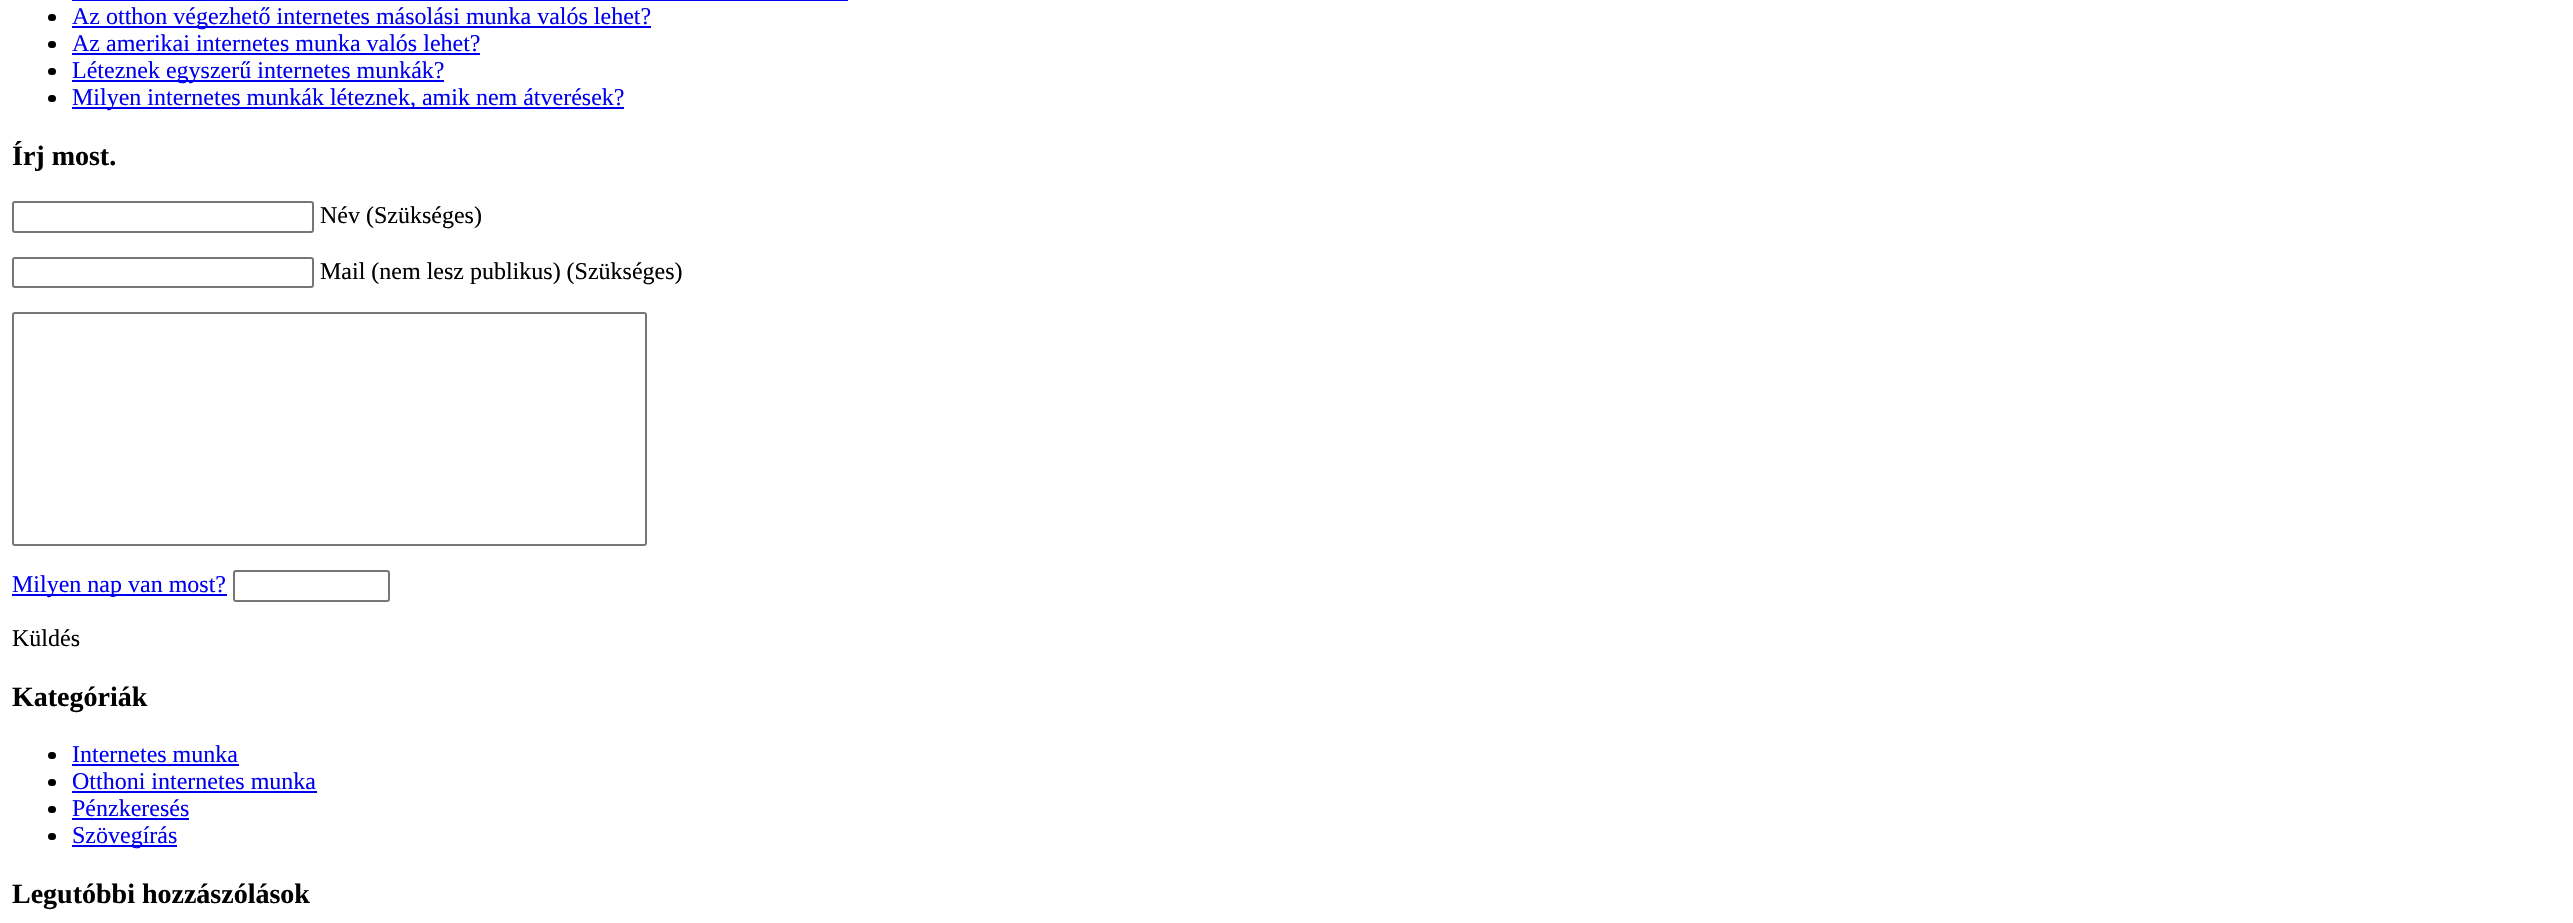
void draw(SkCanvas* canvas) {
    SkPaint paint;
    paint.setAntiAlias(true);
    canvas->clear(0xFFFFFFFF);
    paint.setColor(0xFF0000EE);
    canvas->drawRect(SkRect::MakeXYWH(72, 0, 776, 1), paint);
    paint.setColor(0xFF000000);
    canvas->drawRoundRect(SkRect::MakeXYWH(48, 14, 8, 7), 3.5f, 3.5f, paint);
    paint.setColor(0xFF0000EE);
    canvas->drawRect(SkRect::MakeXYWH(72, 26, 579, 2), paint);
    SkFont font1(fontMgr->matchFamilyStyle("Liberation Serif", SkFontStyle::Normal()), 24);
    font1.setSubpixel(true);
    canvas->drawString("Az otthon végezhető internetes másolási munka valós lehet?", 72, 24, font1, paint);
    paint.setColor(0xFF000000);
    canvas->drawRoundRect(SkRect::MakeXYWH(48, 41, 8, 7), 3.5f, 3.5f, paint);
    paint.setColor(0xFF0000EE);
    canvas->drawString("Az amerikai internetes munka valós lehet?", 72, 51, font1, paint);
    canvas->drawRect(SkRect::MakeXYWH(72, 53, 408, 2), paint);
    paint.setColor(0xFF000000);
    canvas->drawRoundRect(SkRect::MakeXYWH(48, 68, 8, 7), 3.5f, 3.5f, paint);
    paint.setColor(0xFF0000EE);
    canvas->drawRect(SkRect::MakeXYWH(72, 80, 372, 2), paint);
    canvas->drawString("Léteznek egyszerű internetes munkák?", 72, 78, font1, paint);
    paint.setColor(0xFF000000);
    canvas->drawRoundRect(SkRect::MakeXYWH(48, 95, 8, 7), 3.5f, 3.5f, paint);
    paint.setColor(0xFF0000EE);
    canvas->drawRect(SkRect::MakeXYWH(72, 107, 552, 2), paint);
    canvas->drawString("Milyen internetes munkák léteznek, amik nem átverések?", 72, 105, font1, paint);
    SkFont font2(fontMgr->matchFamilyStyle("Liberation Serif", SkFontStyle::Bold()), 28);
    font2.setSubpixel(true);
    paint.setColor(0xFF000000);
    canvas->drawString("Írj most.", 12, 165, font2, paint);
    paint.setStyle(SkPaint::kStroke_Style);
    paint.setStrokeWidth(2);
    paint.setColor(0xFF767676);
    canvas->drawRoundRect(SkRect::MakeXYWH(13, 202, 300, 30), 2, 2, paint);
    paint.setStyle(SkPaint::kFill_Style);
    paint.setColor(0xFF000000);
    canvas->drawString("Név (Szükséges)", 320, 223, font1, paint);
    paint.setStyle(SkPaint::kStroke_Style);
    paint.setColor(0xFF767676);
    canvas->drawRoundRect(SkRect::MakeXYWH(13, 258, 300, 29), 2, 2, paint);
    paint.setStyle(SkPaint::kFill_Style);
    paint.setColor(0xFF000000);
    canvas->drawString("Mail (nem lesz publikus) (Szükséges)", 320, 279, font1, paint);
    paint.setStyle(SkPaint::kStroke_Style);
    paint.setColor(0xFF767676);
    canvas->drawRoundRect(SkRect::MakeXYWH(13, 313, 633, 232), 2, 2, paint);
    paint.setStyle(SkPaint::kFill_Style);
    paint.setColor(0xFF0000EE);
    canvas->drawRect(SkRect::MakeXYWH(12, 594, 215, 2), paint);
    canvas->drawString("Milyen nap van most?", 12, 592, font1, paint);
    paint.setStyle(SkPaint::kStroke_Style);
    paint.setColor(0xFF767676);
    canvas->drawRoundRect(SkRect::MakeXYWH(234, 571, 155, 30), 2, 2, paint);
    paint.setStyle(SkPaint::kFill_Style);
    paint.setColor(0xFF000000);
    canvas->drawString("Küldés", 12, 646, font1, paint);
    canvas->drawString("Kategóriák", 12, 706, font2, paint);
    canvas->drawRoundRect(SkRect::MakeXYWH(48, 752, 8, 7), 3.5f, 3.5f, paint);
    paint.setColor(0xFF0000EE);
    canvas->drawString("Internetes munka", 72, 762, font1, paint);
    canvas->drawRect(SkRect::MakeXYWH(72, 764, 167, 2), paint);
    paint.setColor(0xFF000000);
    canvas->drawRoundRect(SkRect::MakeXYWH(48, 779, 8, 7), 3.5f, 3.5f, paint);
    paint.setColor(0xFF0000EE);
    canvas->drawString("Otthoni internetes munka", 72, 789, font1, paint);
    canvas->drawRect(SkRect::MakeXYWH(72, 791, 245, 2), paint);
    paint.setColor(0xFF000000);
    canvas->drawRoundRect(SkRect::MakeXYWH(48, 806, 8, 7), 3.5f, 3.5f, paint);
    paint.setColor(0xFF0000EE);
    canvas->drawString("Pénzkeresés", 72, 816, font1, paint);
    canvas->drawRect(SkRect::MakeXYWH(72, 818, 117, 2), paint);
    paint.setColor(0xFF000000);
    canvas->drawRoundRect(SkRect::MakeXYWH(48, 833, 8, 7), 3.5f, 3.5f, paint);
    paint.setColor(0xFF0000EE);
    canvas->drawRect(SkRect::MakeXYWH(72, 845, 105, 2), paint);
    canvas->drawString("Szövegírás", 72, 843, font1, paint);
    paint.setColor(0xFF000000);
    canvas->drawString("Legutóbbi hozzászólások", 12, 903, font2, paint);
}
